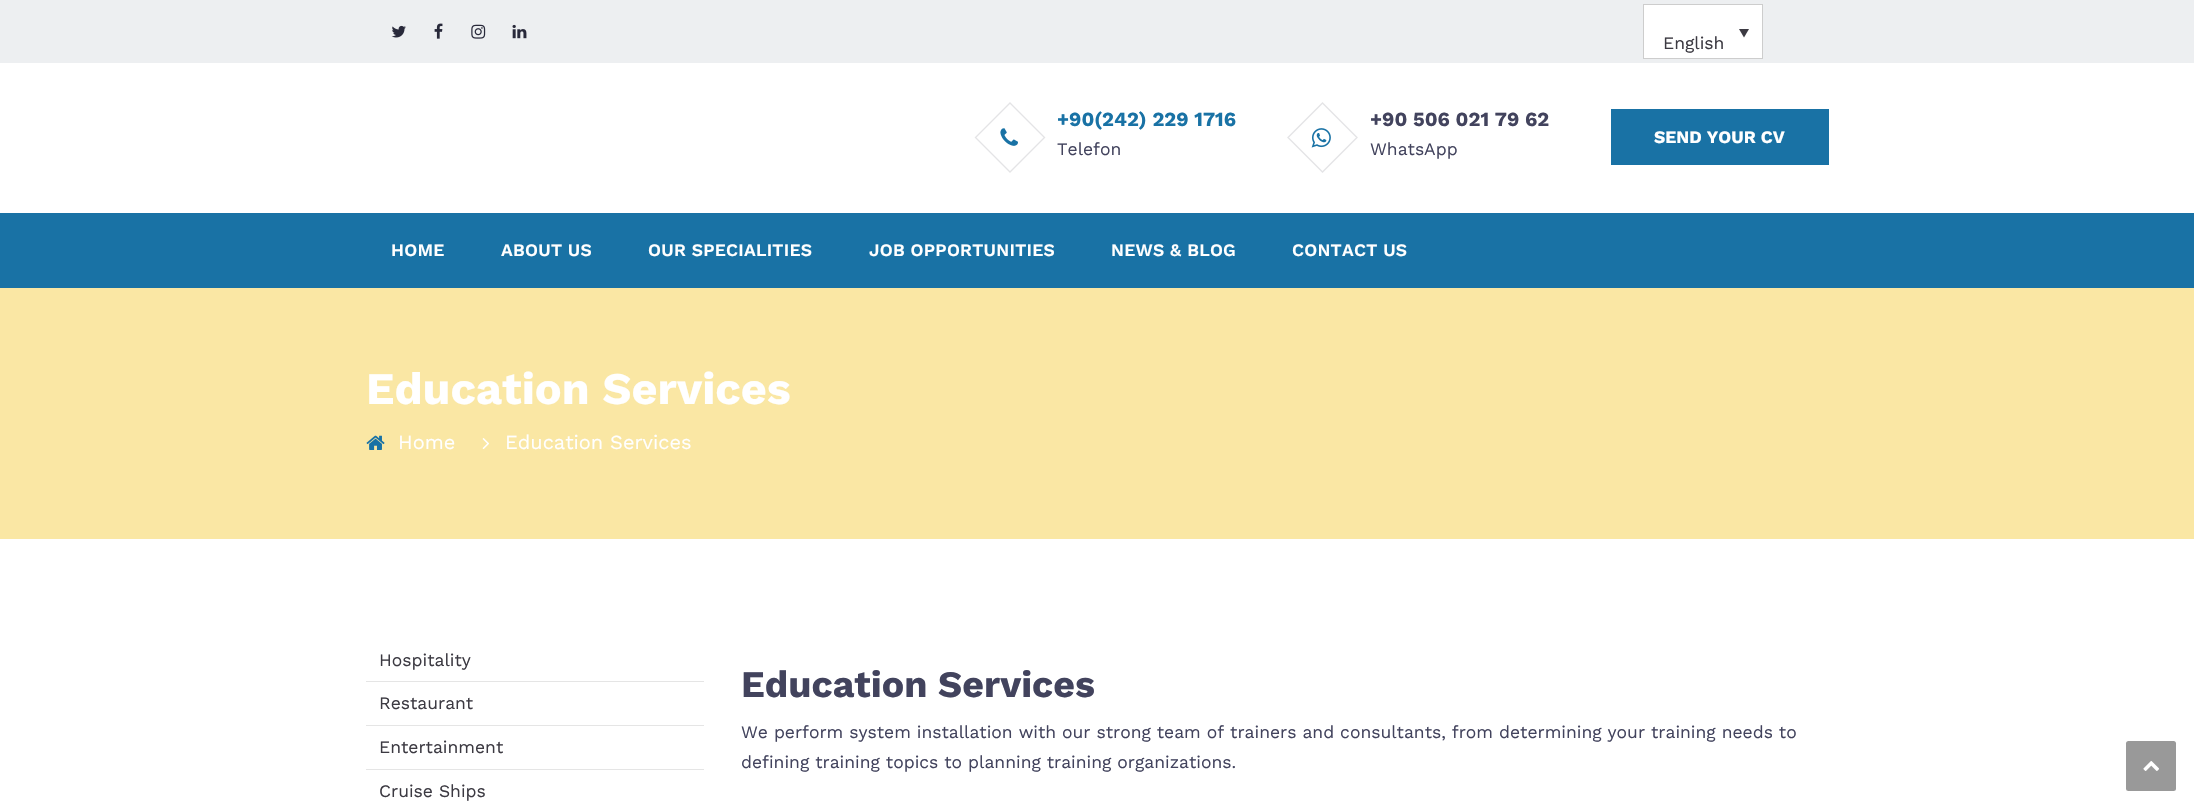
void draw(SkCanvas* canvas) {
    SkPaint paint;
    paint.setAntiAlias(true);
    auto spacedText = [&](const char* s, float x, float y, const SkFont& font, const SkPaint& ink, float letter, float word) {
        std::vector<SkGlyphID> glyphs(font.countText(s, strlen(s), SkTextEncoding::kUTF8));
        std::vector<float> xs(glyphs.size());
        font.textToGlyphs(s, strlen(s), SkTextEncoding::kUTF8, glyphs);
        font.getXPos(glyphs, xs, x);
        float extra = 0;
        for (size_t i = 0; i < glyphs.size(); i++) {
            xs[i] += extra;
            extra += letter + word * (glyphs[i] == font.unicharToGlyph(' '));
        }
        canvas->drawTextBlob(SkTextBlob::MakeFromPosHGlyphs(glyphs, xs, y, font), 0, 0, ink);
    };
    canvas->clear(0xFFFFFFFF);
    paint.setColor(0xFFEDEFF1);
    canvas->drawRect(SkRect::MakeXYWH(0, 0, 2194, 63), paint);
    canvas->drawImageRect(SkImages::DeferredFromEncodedData(SkData::MakeFromFileName("img1.png")), SkRect::MakeXYWH(391, 25, 15, 13), SkSamplingOptions());
    canvas->drawImageRect(SkImages::DeferredFromEncodedData(SkData::MakeFromFileName("img2.png")), SkRect::MakeXYWH(434, 23, 9, 16), SkSamplingOptions());
    canvas->drawImageRect(SkImages::DeferredFromEncodedData(SkData::MakeFromFileName("img3.png")), SkRect::MakeXYWH(471, 24, 15, 15), SkSamplingOptions());
    canvas->drawImageRect(SkImages::DeferredFromEncodedData(SkData::MakeFromFileName("img4.png")), SkRect::MakeXYWH(512, 24, 15, 15), SkSamplingOptions());
    paint.setColor(0xFFFFFFFF);
    canvas->drawRect(SkRect::MakeXYWH(1643.5f, 4.5f, 119, 54), paint);
    paint.setStyle(SkPaint::kStroke_Style);
    paint.setStrokeWidth(1);
    paint.setColor(0xFFCDCDCD);
    canvas->drawRect(SkRect::MakeXYWH(1643.5f, 4.5f, 119, 54), paint);
    paint.setStyle(SkPaint::kFill_Style);
    paint.setColor(0xFF3C3A42);
    canvas->drawPath(SkPathBuilder().moveTo(1739, 29).lineTo(1749, 29).lineTo(1744, 37.5f).close().detach(), paint);
    SkFont font1(fontMgr->matchFamilyStyle("Work Sans", SkFontStyle::Normal()), 17.5f);
    font1.setSubpixel(true);
    canvas->drawString("English", 1663, 49, font1, paint);
    paint.setStyle(SkPaint::kStroke_Style);
    paint.setStrokeWidth(1.3f);
    paint.setColor(0xFFE4E4E6);
    canvas->drawPath(SkPathBuilder().moveTo(1010, 103).lineTo(1044.5f, 137.5f).lineTo(1010, 172).lineTo(975.5f, 137.5f).close().detach(), paint);
    canvas->drawImageRect(SkImages::DeferredFromEncodedData(SkData::MakeFromFileName("img5.png")), SkRect::MakeXYWH(1000, 128, 18, 18), SkSamplingOptions());
    SkFont font2(fontMgr->matchFamilyStyle("Work Sans", SkFontStyle::Bold()), 20);
    font2.setSubpixel(true);
    paint.setStyle(SkPaint::kFill_Style);
    paint.setColor(0xFF1972A5);
    canvas->drawString("+90(242) 229 1716", 1057, 126, font2, paint);
    paint.setColor(0xFF42435D);
    canvas->drawString("Telefon", 1057, 155, font1, paint);
    paint.setStyle(SkPaint::kStroke_Style);
    paint.setColor(0xFFE4E4E6);
    canvas->drawPath(SkPathBuilder().moveTo(1322.5f, 103).lineTo(1357, 137.5f).lineTo(1322.5f, 172).lineTo(1288, 137.5f).close().detach(), paint);
    canvas->drawImageRect(SkImages::DeferredFromEncodedData(SkData::MakeFromFileName("img6.png")), SkRect::MakeXYWH(1311, 128, 20, 20), SkSamplingOptions());
    paint.setStyle(SkPaint::kFill_Style);
    paint.setColor(0xFF42435D);
    canvas->drawString("+90 506 021 79 62", 1370, 126, font2, paint);
    canvas->drawString("WhatsApp", 1370, 155, font1, paint);
    paint.setColor(0xFF1972A5);
    canvas->drawRect(SkRect::MakeXYWH(1611, 109, 218, 56), paint);
    SkFont font3(fontMgr->matchFamilyStyle("Work Sans", SkFontStyle::Bold()), 17.5f);
    font3.setSubpixel(true);
    paint.setColor(0xFFFFFFFF);
    canvas->drawString("SEND YOUR CV", 1654, 143, font3, paint);
    paint.setColor(0xFF1972A5);
    canvas->drawRect(SkRect::MakeXYWH(0, 213, 2194, 75), paint);
    SkFont font4(fontMgr->matchFamilyStyle("Work Sans", SkFontStyle(600, SkFontStyle::kNormal_Width, SkFontStyle::kUpright_Slant)), 17.5f);
    font4.setSubpixel(true);
    paint.setColor(0xFFFFFFFF);
    spacedText("HOME", 391, 256, font4, paint, 0.25f, 0);
    spacedText("ABOUT US", 501, 256, font4, paint, 0.25f, 0);
    spacedText("OUR SPECIALITIES", 648, 256, font4, paint, 0.25f, 0);
    spacedText("JOB OPPORTUNITIES", 869, 256, font4, paint, 0.25f, 0);
    spacedText("NEWS & BLOG", 1111, 256, font4, paint, 0.25f, 0);
    spacedText("CONTACT US", 1292, 256, font4, paint, 0.25f, 0);
    paint.setColor(0xFFFAE7A4);
    canvas->drawRect(SkRect::MakeXYWH(0, 288, 2194, 251), paint);
    SkFont font5(fontMgr->matchFamilyStyle("Work Sans", SkFontStyle::Bold()), 45);
    font5.setSubpixel(true);
    paint.setColor(0xFFFFFFFF);
    canvas->drawString("Education Services", 366, 404, font5, paint);
    canvas->drawImageRect(SkImages::DeferredFromEncodedData(SkData::MakeFromFileName("img7.png")), SkRect::MakeXYWH(366, 435, 19, 15), SkSamplingOptions());
    SkFont font6(fontMgr->matchFamilyStyle("Work Sans", SkFontStyle::Normal()), 20);
    font6.setSubpixel(true);
    canvas->drawString("Home", 398, 449, font6, paint);
    canvas->drawImageRect(SkImages::DeferredFromEncodedData(SkData::MakeFromFileName("img8.png")), SkRect::MakeXYWH(482, 438, 7, 11), SkSamplingOptions());
    canvas->drawString("Education Services", 505, 449, font6, paint);
    paint.setColor(0xFFE5E5E5);
    canvas->drawRect(SkRect::MakeXYWH(366, 681, 338, 1), paint);
    paint.setColor(0xFF3C3A42);
    canvas->drawString("Hospitality", 379, 666, font1, paint);
    paint.setColor(0xFFE5E5E5);
    canvas->drawRect(SkRect::MakeXYWH(366, 725, 338, 1), paint);
    paint.setColor(0xFF3C3A42);
    canvas->drawString("Restaurant", 379, 709, font1, paint);
    paint.setColor(0xFFE5E5E5);
    canvas->drawRect(SkRect::MakeXYWH(366, 769, 338, 1), paint);
    paint.setColor(0xFF3C3A42);
    canvas->drawString("Entertainment", 379, 753, font1, paint);
    canvas->drawString("Cruise Ships", 379, 797, font1, paint);
    SkFont font7(fontMgr->matchFamilyStyle("Work Sans", SkFontStyle::Bold()), 37.5f);
    font7.setSubpixel(true);
    paint.setColor(0xFF42435D);
    canvas->drawString("Education Services", 741, 697, font7, paint);
    canvas->drawString("We perform system installation with our strong team of trainers and consultants, from determining your training needs to", 741, 738, font1, paint);
    canvas->drawString("defining training topics to planning training organizations.", 741, 768, font1, paint);
    paint.setColor(0xFF999999);
    canvas->drawRoundRect(SkRect::MakeXYWH(2126, 741, 50, 50), 2.5f, 2.5f, paint);
    canvas->drawImageRect(SkImages::DeferredFromEncodedData(SkData::MakeFromFileName("img9.png")), SkRect::MakeXYWH(2143, 761, 16, 10), SkSamplingOptions());
}
